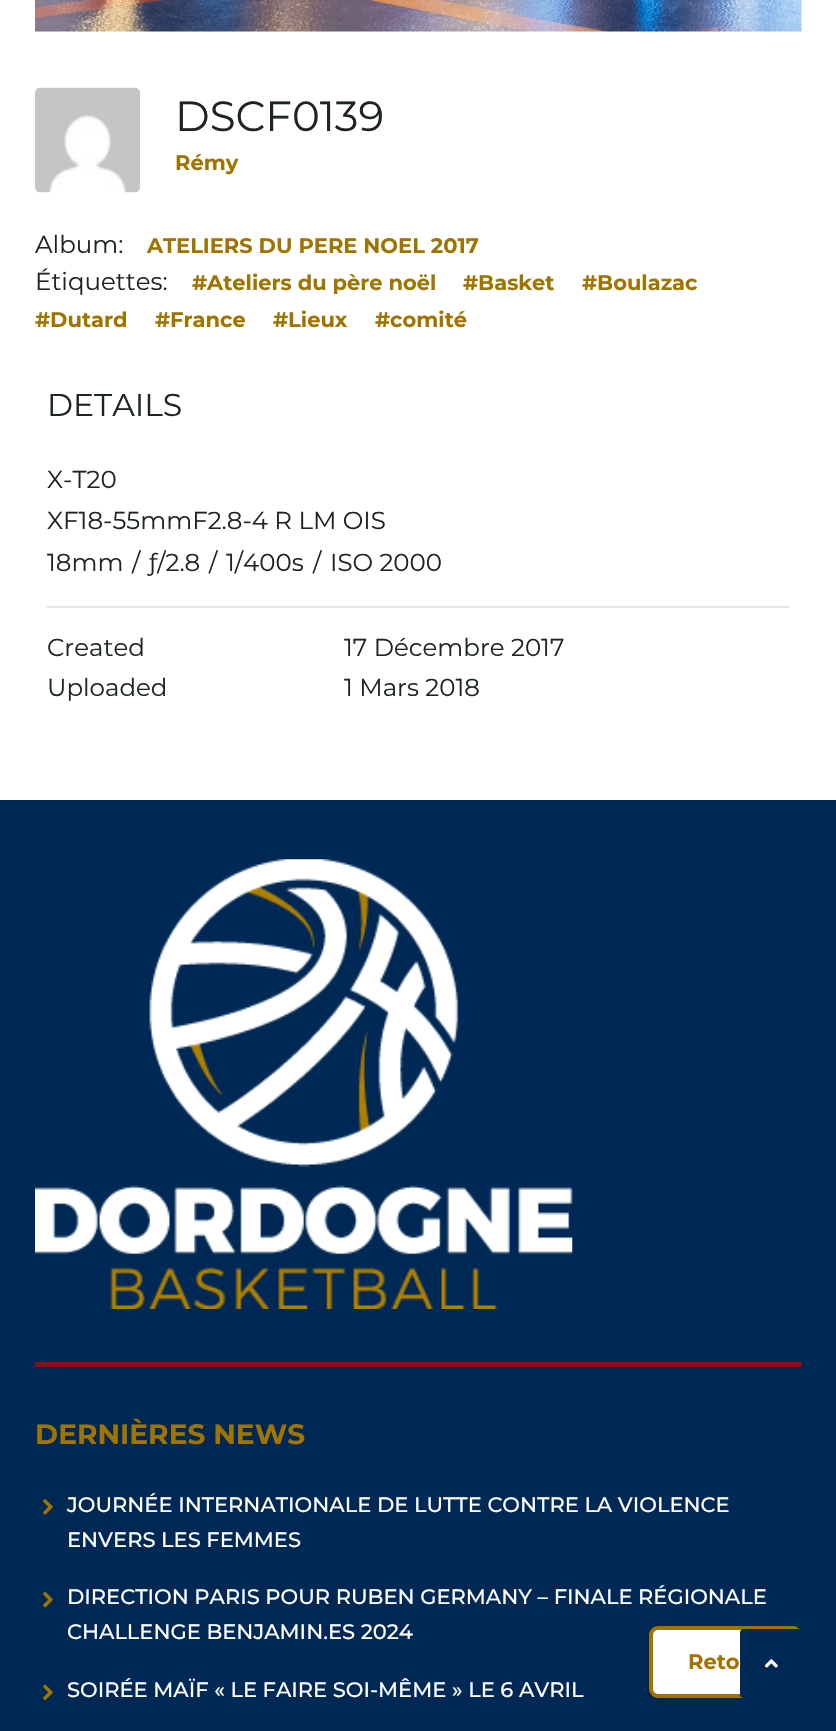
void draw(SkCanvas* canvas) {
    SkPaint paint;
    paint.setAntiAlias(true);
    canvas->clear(0xFFFFFFFF);
    canvas->drawImageRect(SkImages::DeferredFromEncodedData(SkData::MakeFromFileName("img1.png")), SkRect::MakeXYWH(35, 0, 767, 32), SkSamplingOptions());
    canvas->drawImageRect(SkImages::DeferredFromEncodedData(SkData::MakeFromFileName("img2.png")), SkRect::MakeXYWH(35, 87, 105, 106), SkSamplingOptions());
    SkFont font1(fontMgr->matchFamilyStyle("Montserrat", SkFontStyle::Normal()), 42);
    font1.setSubpixel(true);
    paint.setColor(0xFF1D2424);
    canvas->drawString("DSCF0139", 175, 131, font1, paint);
    SkFont font2(fontMgr->matchFamilyStyle("Montserrat", SkFontStyle::Bold()), 21);
    font2.setSubpixel(true);
    paint.setColor(0xFFA07400);
    canvas->drawString("Rémy", 175, 170, font2, paint);
    SkFont font3(fontMgr->matchFamilyStyle("Montserrat", SkFontStyle::Normal()), 24.5f);
    font3.setSubpixel(true);
    paint.setColor(0xFF1D2424);
    canvas->drawString("Album:", 35, 253, font3, paint);
    paint.setColor(0xFFA07400);
    canvas->drawString("ATELIERS DU PERE NOEL 2017", 147, 253, font2, paint);
    paint.setColor(0xFF1D2424);
    canvas->drawString("Étiquettes:", 35, 290, font3, paint);
    paint.setColor(0xFFA07400);
    canvas->drawString("#Ateliers du père noël", 192, 290, font2, paint);
    canvas->drawString("#Basket", 463, 290, font2, paint);
    canvas->drawString("#Boulazac", 582, 290, font2, paint);
    canvas->drawString("#Dutard", 35, 327, font2, paint);
    canvas->drawString("#France", 155, 327, font2, paint);
    canvas->drawString("#Lieux", 273, 327, font2, paint);
    canvas->drawString("#comité", 375, 327, font2, paint);
    SkFont font4(fontMgr->matchFamilyStyle("Montserrat", SkFontStyle::Normal()), 31.5f);
    font4.setSubpixel(true);
    paint.setColor(0xFF1D2424);
    canvas->drawString("DETAILS", 47, 416, font4, paint);
    paint.setColor(0xFFE6E6E6);
    canvas->drawRect(SkRect::MakeXYWH(47, 606, 742, 2), paint);
    paint.setColor(0xFF1D2424);
    canvas->drawString("X-T20", 47, 488, font3, paint);
    canvas->drawString("XF18-55mmF2.8-4 R LM OIS", 47, 529, font3, paint);
    canvas->drawString("18mm", 47, 571, font3, paint);
    canvas->drawString("/", 132, 571, font3, paint);
    canvas->drawString("ƒ/2.8", 149, 571, font3, paint);
    canvas->drawString("/", 209, 571, font3, paint);
    canvas->drawString("1/400s", 226, 571, font3, paint);
    canvas->drawString("/", 313, 571, font3, paint);
    canvas->drawString("ISO 2000", 330, 571, font3, paint);
    canvas->drawString("Created", 47, 656, font3, paint);
    canvas->drawString("17 Décembre 2017", 344, 656, font3, paint);
    canvas->drawString("Uploaded", 47, 696, font3, paint);
    canvas->drawString("1 Mars 2018", 344, 696, font3, paint);
    paint.setColor(0xFF002855);
    canvas->drawRect(SkRect::MakeXYWH(0, 800, 836, 931), paint);
    paint.setColor(0xFF831212);
    canvas->drawRect(SkRect::MakeXYWH(35, 1362, 767, 5), paint);
    canvas->drawImageRect(SkImages::DeferredFromEncodedData(SkData::MakeFromFileName("img3.png")), SkRect::MakeXYWH(35, 859, 538, 450), SkSamplingOptions());
    SkFont font5(fontMgr->matchFamilyStyle("Montserrat", SkFontStyle::Bold()), 28);
    font5.setSubpixel(true);
    paint.setColor(0xFFA07400);
    canvas->drawString("DERNIÈRES NEWS", 35, 1444, font5, paint);
    canvas->drawImageRect(SkImages::DeferredFromEncodedData(SkData::MakeFromFileName("img4.png")), SkRect::MakeXYWH(42, 1499, 11, 16), SkSamplingOptions());
    SkFont font6(fontMgr->matchFamilyStyle("Montserrat", SkFontStyle(500, SkFontStyle::kNormal_Width, SkFontStyle::kUpright_Slant)), 21);
    font6.setSubpixel(true);
    paint.setColor(0xFFFFFFFF);
    canvas->drawString("JOURNÉE INTERNATIONALE DE LUTTE CONTRE LA VIOLENCE", 67, 1512, font6, paint);
    canvas->drawString("ENVERS LES FEMMES", 67, 1547, font6, paint);
    canvas->drawImageRect(SkImages::DeferredFromEncodedData(SkData::MakeFromFileName("img5.png")), SkRect::MakeXYWH(42, 1591, 11, 17), SkSamplingOptions());
    canvas->drawString("DIRECTION PARIS POUR RUBEN GERMANY – FINALE RÉGIONALE", 67, 1604, font6, paint);
    canvas->drawString("CHALLENGE BENJAMIN.ES 2024", 67, 1639, font6, paint);
    canvas->drawImageRect(SkImages::DeferredFromEncodedData(SkData::MakeFromFileName("img6.png")), SkRect::MakeXYWH(42, 1684, 11, 17), SkSamplingOptions());
    canvas->drawString("SOIRÉE MAÏF « LE FAIRE SOI-MÊME » LE 6 AVRIL", 67, 1697, font6, paint);
    canvas->drawRoundRect(SkRect::MakeXYWH(651, 1628, 149, 68), 7, 7, paint);
    paint.setStyle(SkPaint::kStroke_Style);
    paint.setStrokeWidth(4);
    paint.setColor(0xFFA07400);
    canvas->drawRoundRect(SkRect::MakeXYWH(651, 1628, 149, 68), 7, 7, paint);
    paint.setStyle(SkPaint::kFill_Style);
    paint.setColor(0xFF002855);
    canvas->drawRoundRect(SkRect::MakeXYWH(740, 1629, 62, 69), 4, 4, paint);
    canvas->drawImageRect(SkImages::DeferredFromEncodedData(SkData::MakeFromFileName("img7.png")), SkRect::MakeXYWH(764, 1659, 14, 9), SkSamplingOptions());
    paint.setColor(0xFFA07400);
    canvas->drawString("Reto", 688, 1669, font2, paint);
}
